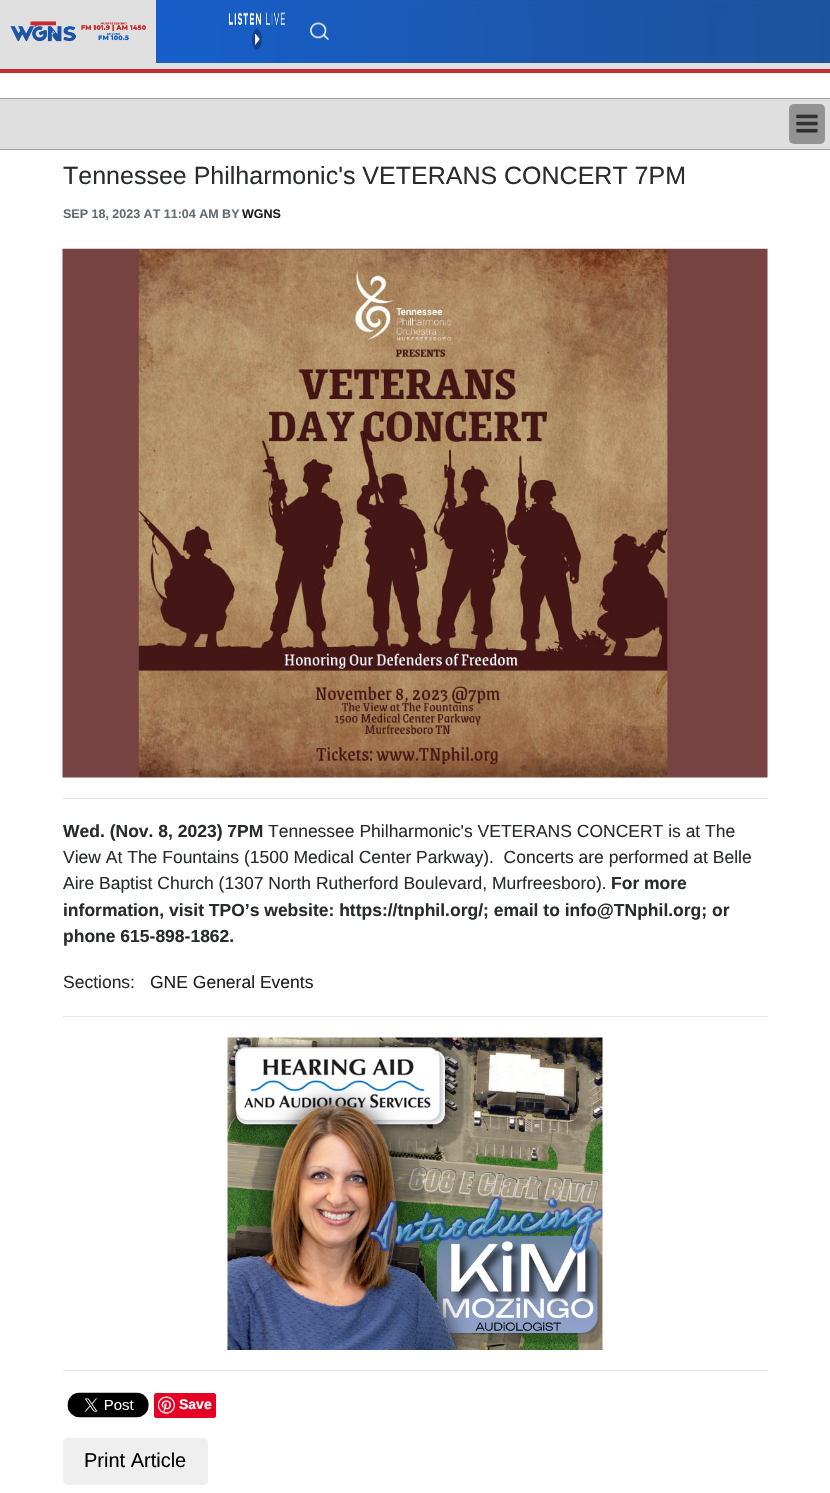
void draw(SkCanvas* canvas) {
    SkPaint paint;
    paint.setAntiAlias(true);
    canvas->clear(0xFFFFFFFF);
    canvas->drawImageRect(SkImages::DeferredFromEncodedData(SkData::MakeFromFileName("img1.png")), SkRect::MakeXYWH(156, 0, 674, 63), SkSamplingOptions());
    paint.setColor(0xFFE0E0E0);
    canvas->drawRect(SkRect::MakeXYWH(0, 63, 830, 6), paint);
    canvas->drawRect(SkRect::MakeXYWH(0, 0, 156, 63), paint);
    canvas->drawImageRect(SkImages::DeferredFromEncodedData(SkData::MakeFromFileName("img2.png")), SkRect::MakeXYWH(10, 21, 136, 21), SkSamplingOptions());
    canvas->drawImageRect(SkImages::DeferredFromEncodedData(SkData::MakeFromFileName("img3.png")), SkRect::MakeXYWH(229, 12, 56, 38), SkSamplingOptions());
    canvas->drawImageRect(SkImages::DeferredFromEncodedData(SkData::MakeFromFileName("img4.png")), SkRect::MakeXYWH(310, 22, 19, 18), SkSamplingOptions());
    paint.setColor(0xFFC62A2E);
    canvas->drawRect(SkRect::MakeXYWH(0, 69, 830, 4), paint);
    paint.setColor(0xFFDFDFDF);
    canvas->drawRect(SkRect::MakeXYWH(0, 99, 830, 50), paint);
    paint.setColor(0xFFA0A0A0);
    canvas->drawRect(SkRect::MakeXYWH(0, 98, 830, 1), paint);
    canvas->drawRect(SkRect::MakeXYWH(0, 149, 830, 1), paint);
    paint.setColor(0xFF939393);
    canvas->drawRoundRect(SkRect::MakeXYWH(789, 104, 36, 40), 5, 5, paint);
    canvas->drawImageRect(SkImages::DeferredFromEncodedData(SkData::MakeFromFileName("img5.png")), SkRect::MakeXYWH(796, 114, 22, 19), SkSamplingOptions());
    SkFont font1(fontMgr->matchFamilyStyle("Liberation Sans", SkFontStyle::Normal()), 25);
    font1.setSubpixel(true);
    paint.setColor(0xFF292B2C);
    canvas->drawString("Tennessee Philharmonic's VETERANS CONCERT 7PM", 63, 184, font1, paint);
    SkFont font2(fontMgr->matchFamilyStyle("Liberation Sans", SkFontStyle::Bold()), 12.5f);
    font2.setSubpixel(true);
    paint.setColor(0xFF636C72);
    canvas->drawString("SEP 18, 2023 AT 11:04 AM BY", 63, 218, font2, paint);
    paint.setColor(0xFF1F1F1F);
    canvas->drawString("WGNS", 242, 218, font2, paint);
    canvas->drawImageRect(SkImages::DeferredFromEncodedData(SkData::MakeFromFileName("img6.png")), SkRect::MakeXYWH(62, 248, 706, 530), SkSamplingOptions());
    paint.setColor(0xFFE6E6E6);
    canvas->drawRect(SkRect::MakeXYWH(63, 798, 705, 1), paint);
    SkFont font3(fontMgr->matchFamilyStyle("Liberation Sans", SkFontStyle::Bold()), 17.5f);
    font3.setSubpixel(true);
    paint.setColor(0xFF292B2C);
    canvas->drawString("Wed. (Nov. 8, 2023) 7PM", 63, 837, font3, paint);
    SkFont font4(fontMgr->matchFamilyStyle("Liberation Sans", SkFontStyle::Normal()), 17.5f);
    font4.setSubpixel(true);
    canvas->drawString("Tennessee Philharmonic's VETERANS CONCERT is at The", 268, 837, font4, paint);
    canvas->drawString("View At The Fountains (1500 Medical Center Parkway).  Concerts are performed at Belle", 63, 863, font4, paint);
    canvas->drawString("Aire Baptist Church (1307 North Rutherford Boulevard, Murfreesboro).", 63, 889, font4, paint);
    canvas->drawString("For more", 611, 889, font3, paint);
    canvas->drawString("information, visit TPO’s website: https://tnphil.org/; email to info@TNphil.org; or", 63, 916, font3, paint);
    canvas->drawString("phone 615-898-1862.", 63, 942, font3, paint);
    canvas->drawString("Sections:", 63, 988, font4, paint);
    paint.setColor(0xFF1F1F1F);
    canvas->drawString("GNE General Events", 150, 988, font4, paint);
    paint.setColor(0xFFE6E6E6);
    canvas->drawRect(SkRect::MakeXYWH(63, 1016, 705, 1), paint);
    canvas->drawImageRect(SkImages::DeferredFromEncodedData(SkData::MakeFromFileName("img7.png")), SkRect::MakeXYWH(227, 1037, 376, 313), SkSamplingOptions());
    canvas->drawRect(SkRect::MakeXYWH(63, 1370, 705, 1), paint);
    canvas->drawImageRect(SkImages::DeferredFromEncodedData(SkData::MakeFromFileName("img8.png")), SkRect::MakeXYWH(67, 1392, 82, 26), SkSamplingOptions());
    paint.setColor(0xFFE60023);
    canvas->drawRoundRect(SkRect::MakeXYWH(154, 1393, 62, 25), 2.5f, 2.5f, paint);
    canvas->drawImageRect(SkImages::DeferredFromEncodedData(SkData::MakeFromFileName("img9.png")), SkRect::MakeXYWH(158, 1396, 17, 18), SkSamplingOptions());
    SkFont font5(fontMgr->matchFamilyStyle("Liberation Sans", SkFontStyle::Bold()), 14);
    font5.setSubpixel(true);
    paint.setColor(0xFFFFFFFF);
    canvas->drawString("Save", 179, 1409, font5, paint);
    paint.setColor(0xFFEFEFEF);
    canvas->drawRoundRect(SkRect::MakeXYWH(63, 1438, 145, 47), 5, 5, paint);
    SkFont font6(fontMgr->matchFamilyStyle("Liberation Sans", SkFontStyle::Normal()), 20);
    font6.setSubpixel(true);
    paint.setColor(0xFF000000);
    canvas->drawString("Print Article", 84, 1467, font6, paint);
}
